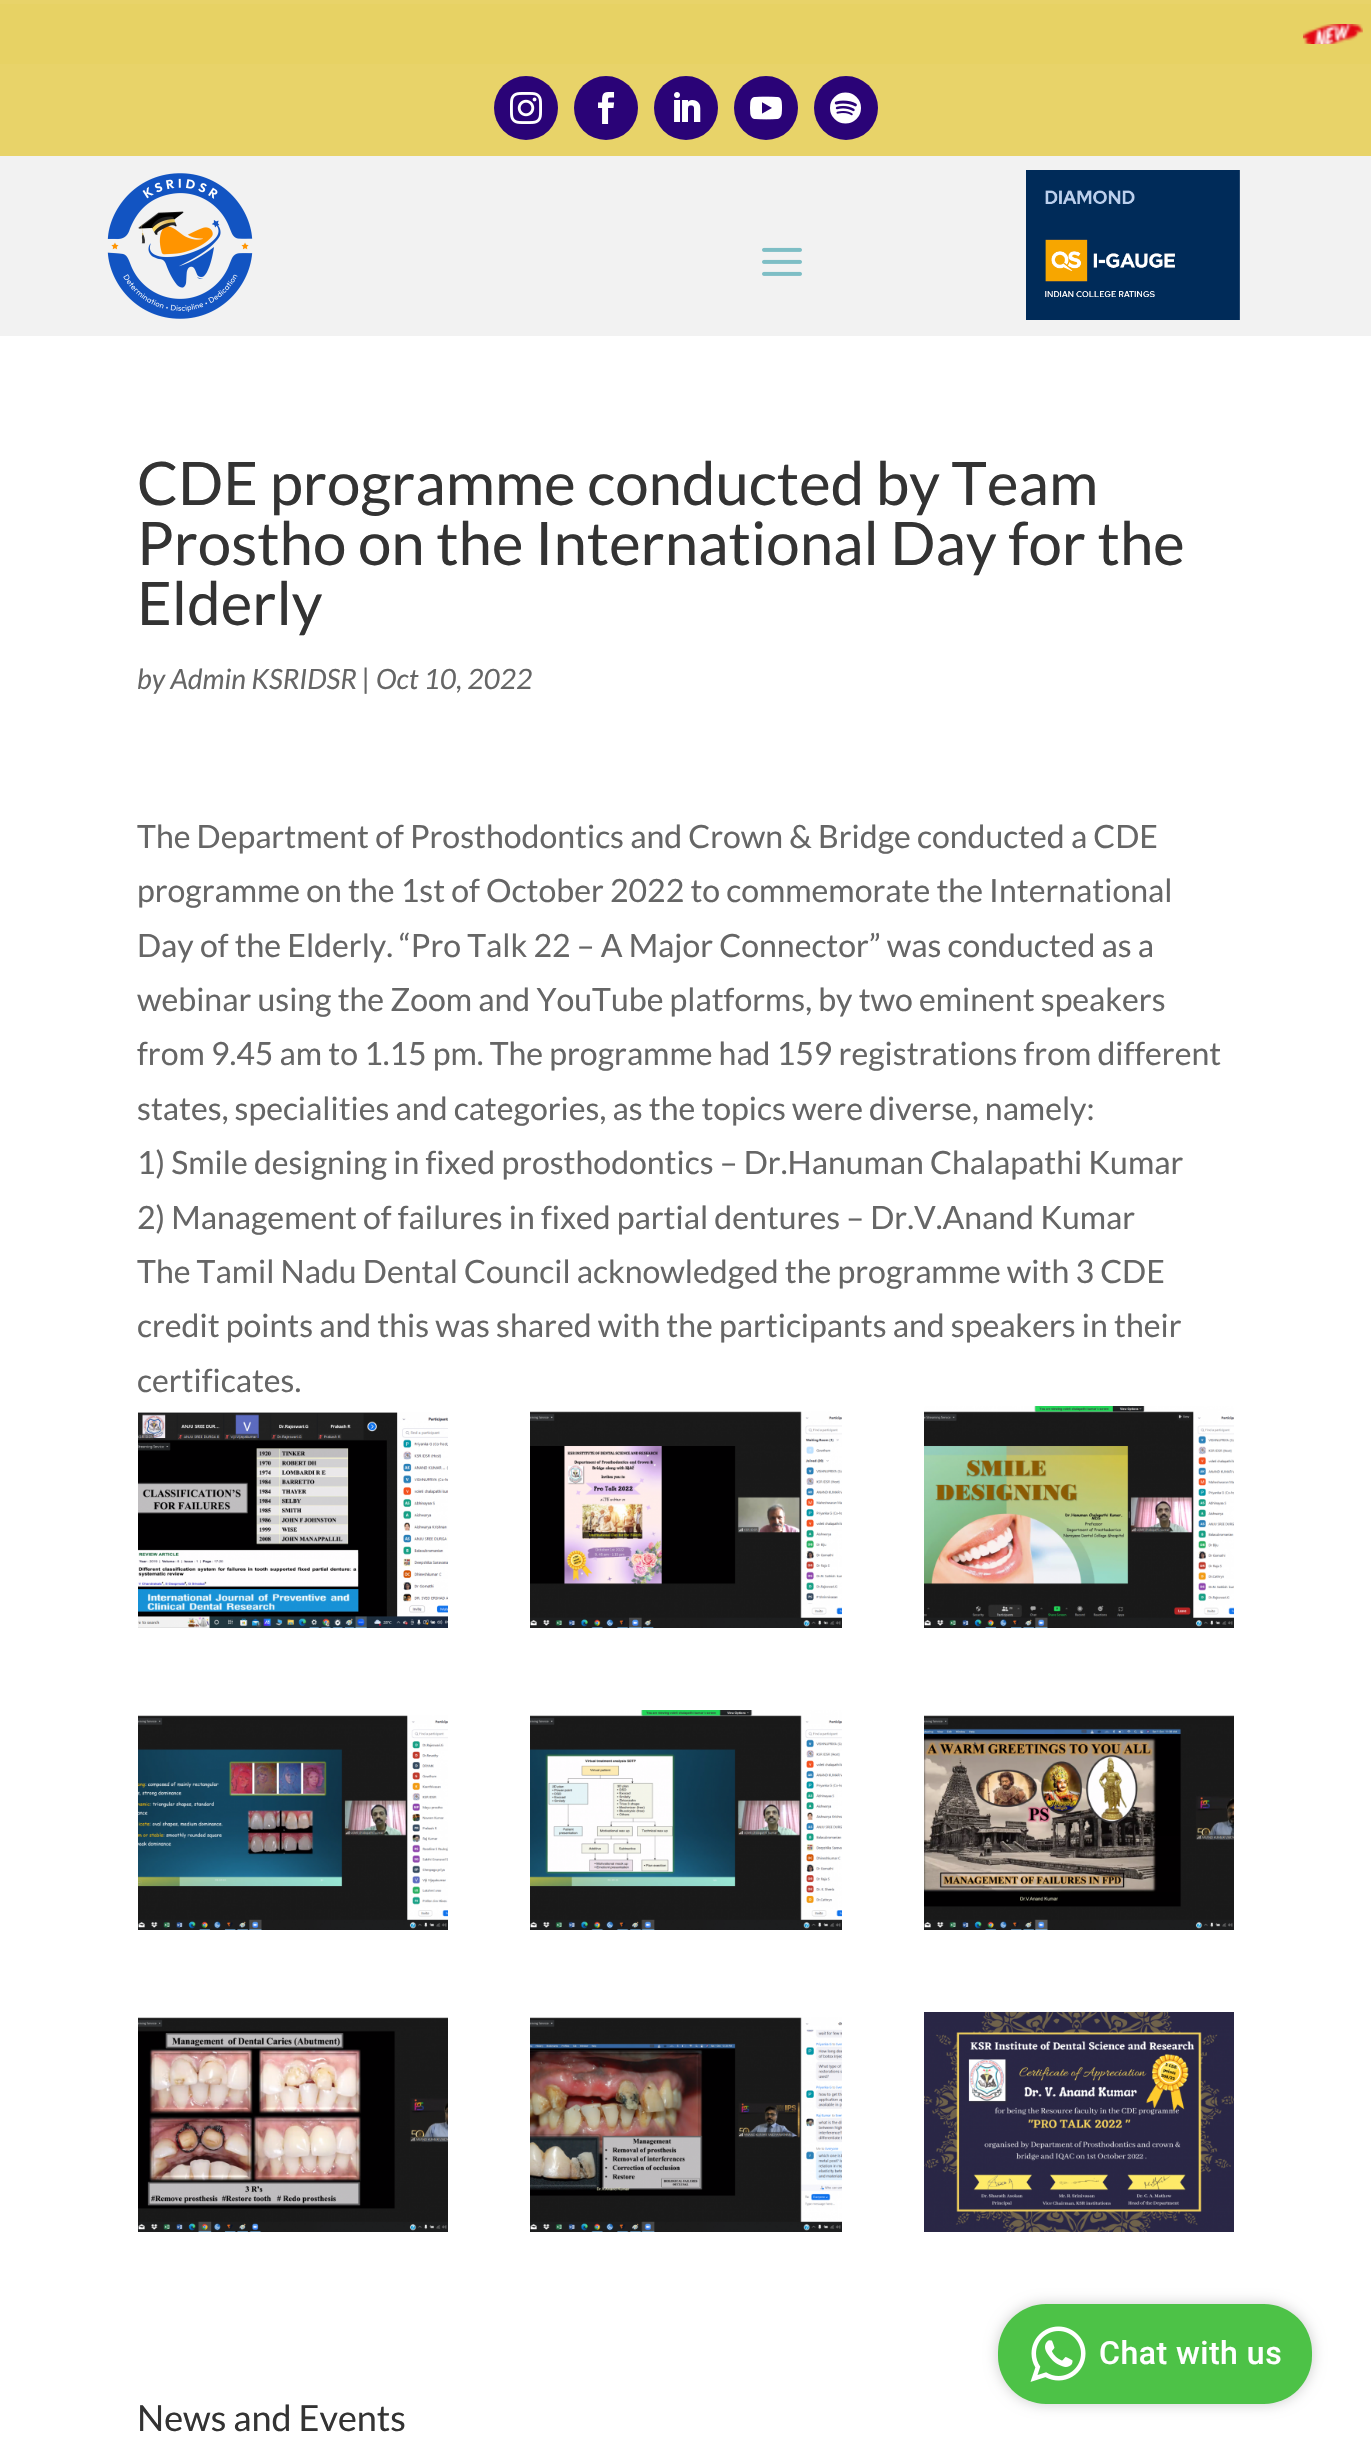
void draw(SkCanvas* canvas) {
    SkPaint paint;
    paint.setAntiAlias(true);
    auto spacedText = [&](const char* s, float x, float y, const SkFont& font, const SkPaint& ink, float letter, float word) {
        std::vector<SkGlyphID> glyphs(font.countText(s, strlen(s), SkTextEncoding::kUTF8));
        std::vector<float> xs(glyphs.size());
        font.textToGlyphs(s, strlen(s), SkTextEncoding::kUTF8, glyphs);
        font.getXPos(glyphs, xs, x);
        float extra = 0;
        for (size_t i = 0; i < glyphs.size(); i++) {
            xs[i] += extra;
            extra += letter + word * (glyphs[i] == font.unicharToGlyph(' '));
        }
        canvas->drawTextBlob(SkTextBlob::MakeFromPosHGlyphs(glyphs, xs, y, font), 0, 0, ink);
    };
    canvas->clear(0xFFFFFFFF);
    paint.setColor(0xFFE8D369);
    canvas->drawRect(SkRect::MakeXYWH(0, 0, 1371, 156), paint);
    paint.setColor(0xFFE7D264);
    canvas->drawRect(SkRect::MakeXYWH(0, 4, 1371, 60), paint);
    canvas->drawImageRect(SkImages::DeferredFromEncodedData(SkData::MakeFromFileName("img1.png")), SkRect::MakeXYWH(1302, 24, 61, 20), SkSamplingOptions());
    paint.setColor(0xFF2A0377);
    canvas->drawCircle(526, 108, 32, paint);
    canvas->drawImageRect(SkImages::DeferredFromEncodedData(SkData::MakeFromFileName("img2.png")), SkRect::MakeXYWH(510, 92, 32, 32), SkSamplingOptions());
    canvas->drawCircle(606, 108, 32, paint);
    canvas->drawImageRect(SkImages::DeferredFromEncodedData(SkData::MakeFromFileName("img3.png")), SkRect::MakeXYWH(598, 92, 17, 32), SkSamplingOptions());
    canvas->drawCircle(686, 108, 32, paint);
    canvas->drawImageRect(SkImages::DeferredFromEncodedData(SkData::MakeFromFileName("img4.png")), SkRect::MakeXYWH(674, 92, 27, 30), SkSamplingOptions());
    canvas->drawCircle(766, 108, 32, paint);
    canvas->drawImageRect(SkImages::DeferredFromEncodedData(SkData::MakeFromFileName("img5.png")), SkRect::MakeXYWH(750, 96, 32, 24), SkSamplingOptions());
    canvas->drawCircle(846, 108, 32, paint);
    canvas->drawImageRect(SkImages::DeferredFromEncodedData(SkData::MakeFromFileName("img6.png")), SkRect::MakeXYWH(830, 92, 31, 32), SkSamplingOptions());
    paint.setColor(0xFFF2F2F2);
    canvas->drawRect(SkRect::MakeXYWH(0, 156, 1371, 180), paint);
    canvas->drawImageRect(SkImages::DeferredFromEncodedData(SkData::MakeFromFileName("img7.png")), SkRect::MakeXYWH(107, 173, 146, 146), SkSamplingOptions());
    canvas->drawImageRect(SkImages::DeferredFromEncodedData(SkData::MakeFromFileName("img8.png")), SkRect::MakeXYWH(762, 247, 40, 29), SkSamplingOptions());
    canvas->drawImageRect(SkImages::DeferredFromEncodedData(SkData::MakeFromFileName("img9.png")), SkRect::MakeXYWH(1026, 170, 214, 150), SkSamplingOptions());
    SkFont font1(fontMgr->matchFamilyStyle("Lato", SkFontStyle::Normal()), 60);
    font1.setSubpixel(true);
    paint.setColor(0xFF333333);
    canvas->drawString("CDE programme conducted by Team", 137, 505, font1, paint);
    canvas->drawString("Prostho on the International Day for the", 137, 565, font1, paint);
    canvas->drawString("Elderly", 137, 625, font1, paint);
    SkFont font2(fontMgr->matchFamilyStyle("Lato", SkFontStyle::Italic()), 28);
    font2.setSubpixel(true);
    paint.setColor(0xFF666666);
    canvas->drawString("by Admin KSRIDSR | Oct 10, 2022", 137, 689, font2, paint);
    SkFont font3(fontMgr->matchFamilyStyle("Lato", SkFontStyle::Normal()), 32);
    font3.setSubpixel(true);
    canvas->drawString("The Department of Prosthodontics and Crown & Bridge conducted a CDE", 137, 848, font3, paint);
    canvas->drawString("programme on the 1st of October 2022 to commemorate the International", 137, 902, font3, paint);
    canvas->drawString("Day of the Elderly. “Pro Talk 22 – A Major Connector” was conducted as a", 137, 957, font3, paint);
    canvas->drawString("webinar using the Zoom and YouTube platforms, by two eminent speakers", 137, 1011, font3, paint);
    canvas->drawString("from 9.45 am to 1.15 pm. The programme had 159 registrations from different", 137, 1065, font3, paint);
    canvas->drawString("states, specialities and categories, as the topics were diverse, namely:", 137, 1120, font3, paint);
    canvas->drawString("1) Smile designing in fixed prosthodontics – Dr.Hanuman Chalapathi Kumar", 137, 1174, font3, paint);
    canvas->drawString("2) Management of failures in fixed partial dentures – Dr.V.Anand Kumar", 137, 1229, font3, paint);
    canvas->drawString("The Tamil Nadu Dental Council acknowledged the programme with 3 CDE", 137, 1283, font3, paint);
    canvas->drawString("credit points and this was shared with the participants and speakers in their", 137, 1337, font3, paint);
    canvas->drawString("certificates.", 137, 1392, font3, paint);
    canvas->drawImageRect(SkImages::DeferredFromEncodedData(SkData::MakeFromFileName("img10.png")), SkRect::MakeXYWH(138, 1412, 310, 216), SkSamplingOptions());
    canvas->drawImageRect(SkImages::DeferredFromEncodedData(SkData::MakeFromFileName("img11.png")), SkRect::MakeXYWH(530, 1411, 312, 217), SkSamplingOptions());
    canvas->drawImageRect(SkImages::DeferredFromEncodedData(SkData::MakeFromFileName("img12.png")), SkRect::MakeXYWH(924, 1406, 310, 222), SkSamplingOptions());
    canvas->drawImageRect(SkImages::DeferredFromEncodedData(SkData::MakeFromFileName("img13.png")), SkRect::MakeXYWH(138, 1715, 310, 215), SkSamplingOptions());
    canvas->drawImageRect(SkImages::DeferredFromEncodedData(SkData::MakeFromFileName("img14.png")), SkRect::MakeXYWH(530, 1710, 312, 220), SkSamplingOptions());
    canvas->drawImageRect(SkImages::DeferredFromEncodedData(SkData::MakeFromFileName("img15.png")), SkRect::MakeXYWH(924, 1715, 310, 215), SkSamplingOptions());
    canvas->drawImageRect(SkImages::DeferredFromEncodedData(SkData::MakeFromFileName("img16.png")), SkRect::MakeXYWH(138, 2017, 310, 215), SkSamplingOptions());
    canvas->drawImageRect(SkImages::DeferredFromEncodedData(SkData::MakeFromFileName("img17.png")), SkRect::MakeXYWH(530, 2017, 312, 215), SkSamplingOptions());
    canvas->drawImageRect(SkImages::DeferredFromEncodedData(SkData::MakeFromFileName("img18.png")), SkRect::MakeXYWH(924, 2012, 310, 220), SkSamplingOptions());
    SkFont font4(fontMgr->matchFamilyStyle("Lato", SkFontStyle::Normal()), 36);
    font4.setSubpixel(true);
    paint.setColor(0xFF333333);
    canvas->drawString("News and Events", 137, 2431, font4, paint);
    paint.setColor(0x33000000);
    paint.setMaskFilter(SkMaskFilter::MakeBlur(kNormal_SkBlurStyle, 7));
    canvas->drawRoundRect(SkRect::MakeXYWH(998, 2304, 314, 100), 48, 48, paint);
    paint.setMaskFilter(nullptr);
    paint.setColor(0xFF4DC247);
    canvas->drawRoundRect(SkRect::MakeXYWH(998, 2304, 314, 100), 48, 48, paint);
    canvas->drawImageRect(SkImages::DeferredFromEncodedData(SkData::MakeFromFileName("img19.png")), SkRect::MakeXYWH(1030, 2326, 56, 56), SkSamplingOptions());
    SkFont font5(fontMgr->matchFamilyStyle("Roboto", SkFontStyle(500, SkFontStyle::kNormal_Width, SkFontStyle::kUpright_Slant)), 32);
    font5.setSubpixel(true);
    paint.setColor(0xFFFFFFFF);
    spacedText("Chat with us", 1099, 2364, font5, paint, 0.5f, 0);
}
